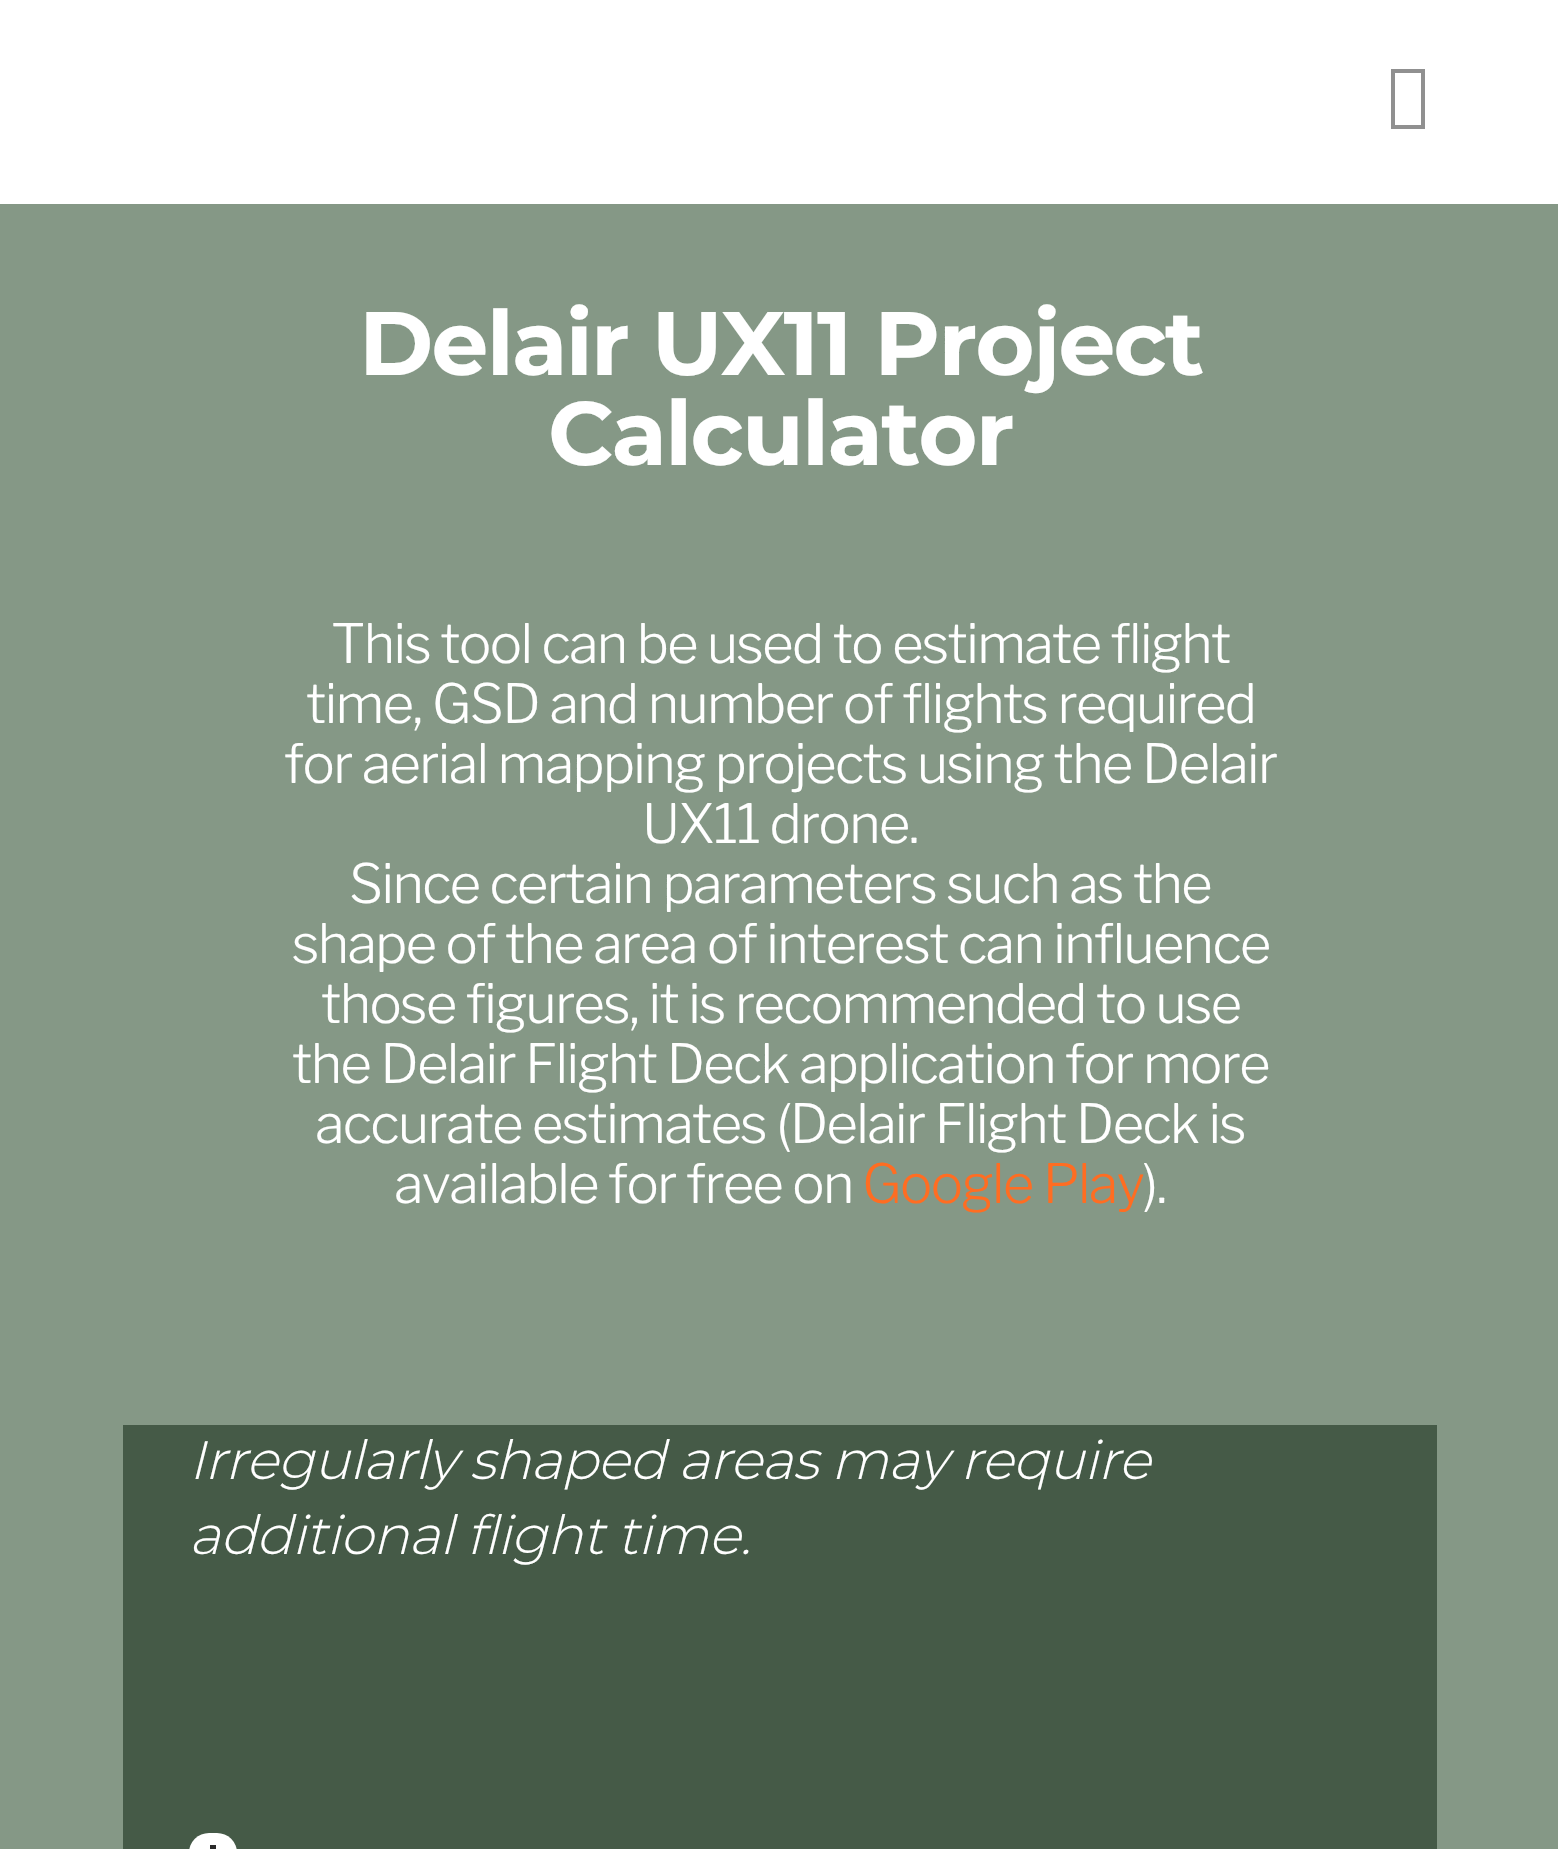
void draw(SkCanvas* canvas) {
    SkPaint paint;
    paint.setAntiAlias(true);
    auto spacedText = [&](const char* s, float x, float y, const SkFont& font, const SkPaint& ink, float letter, float word) {
        std::vector<SkGlyphID> glyphs(font.countText(s, strlen(s), SkTextEncoding::kUTF8));
        std::vector<float> xs(glyphs.size());
        font.textToGlyphs(s, strlen(s), SkTextEncoding::kUTF8, glyphs);
        font.getXPos(glyphs, xs, x);
        float extra = 0;
        for (size_t i = 0; i < glyphs.size(); i++) {
            xs[i] += extra;
            extra += letter + word * (glyphs[i] == font.unicharToGlyph(' '));
        }
        canvas->drawTextBlob(SkTextBlob::MakeFromPosHGlyphs(glyphs, xs, y, font), 0, 0, ink);
    };
    canvas->clear(0xFF859886);
    paint.setColor(0xFFFFFFFF);
    canvas->drawRect(SkRect::MakeXYWH(0, 0, 1558, 204), paint);
    paint.setColor(0xFF909090);
    canvas->drawPath(SkPathBuilder().moveTo(1391, 129).lineTo(1391, 69).lineTo(1425, 69).lineTo(1425, 129).close().moveTo(1395, 125).lineTo(1421, 125).lineTo(1421, 73).lineTo(1395, 73).close().detach(), paint);
    SkFont font1(fontMgr->matchFamilyStyle("Montserrat", SkFontStyle::Bold()), 90);
    font1.setSubpixel(true);
    paint.setColor(0xFFFFFFFF);
    spacedText("Delair UX11 Project", 359, 375, font1, paint, -1.75f, 0);
    spacedText("Calculator", 548, 465, font1, paint, -1.75f, 0);
    SkFont font2(fontMgr->matchFamilyStyle("Libre Franklin", SkFontStyle(100, SkFontStyle::kNormal_Width, SkFontStyle::kUpright_Slant)), 54);
    font2.setSubpixel(true);
    spacedText("This tool can be used to estimate flight", 331, 663, font2, paint, -1.6f, 0);
    spacedText("time, GSD and number of flights required", 306, 723, font2, paint, -1.6f, 0);
    spacedText("for aerial mapping projects using the Delair", 284, 783, font2, paint, -1.6f, 0);
    spacedText("UX11 drone.", 642, 843, font2, paint, -1.6f, 0);
    spacedText("Since certain parameters such as the", 349, 903, font2, paint, -1.6f, 0);
    spacedText("shape of the area of interest can influence", 292, 963, font2, paint, -1.6f, 0);
    spacedText("those figures, it is recommended to use", 321, 1023, font2, paint, -1.6f, 0);
    spacedText("the Delair Flight Deck application for more", 292, 1083, font2, paint, -1.6f, 0);
    spacedText("accurate estimates (Delair Flight Deck is", 315, 1143, font2, paint, -1.6f, 0);
    spacedText("available for free on", 394, 1203, font2, paint, -1.6f, 0);
    paint.setColor(0xFFFF6D22);
    spacedText("Google Play", 862, 1203, font2, paint, -1.6f, 0);
    paint.setColor(0xFFFFFFFF);
    spacedText(").", 1143, 1203, font2, paint, -1.6f, 0);
    paint.setColor(0xFF455A47);
    canvas->drawRect(SkRect::MakeXYWH(123, 1425, 1314, 424), paint);
    SkFont font3(fontMgr->matchFamilyStyle("Montserrat", SkFontStyle(300, SkFontStyle::kNormal_Width, SkFontStyle::kItalic_Slant)), 54);
    font3.setSubpixel(true);
    paint.setColor(0xFFFFFFFF);
    spacedText("Irregularly shaped areas may require", 189, 1479, font3, paint, -0.55f, 0);
    spacedText("additional flight time.", 189, 1554, font3, paint, -0.55f, 0);
    canvas->drawRoundRect(SkRect::MakeXYWH(189, 1833, 48, 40), 24, 24, paint);
    paint.setColor(0xFF2A2A2A);
    canvas->drawRect(SkRect::MakeXYWH(210, 1845, 6, 4), paint);
}
